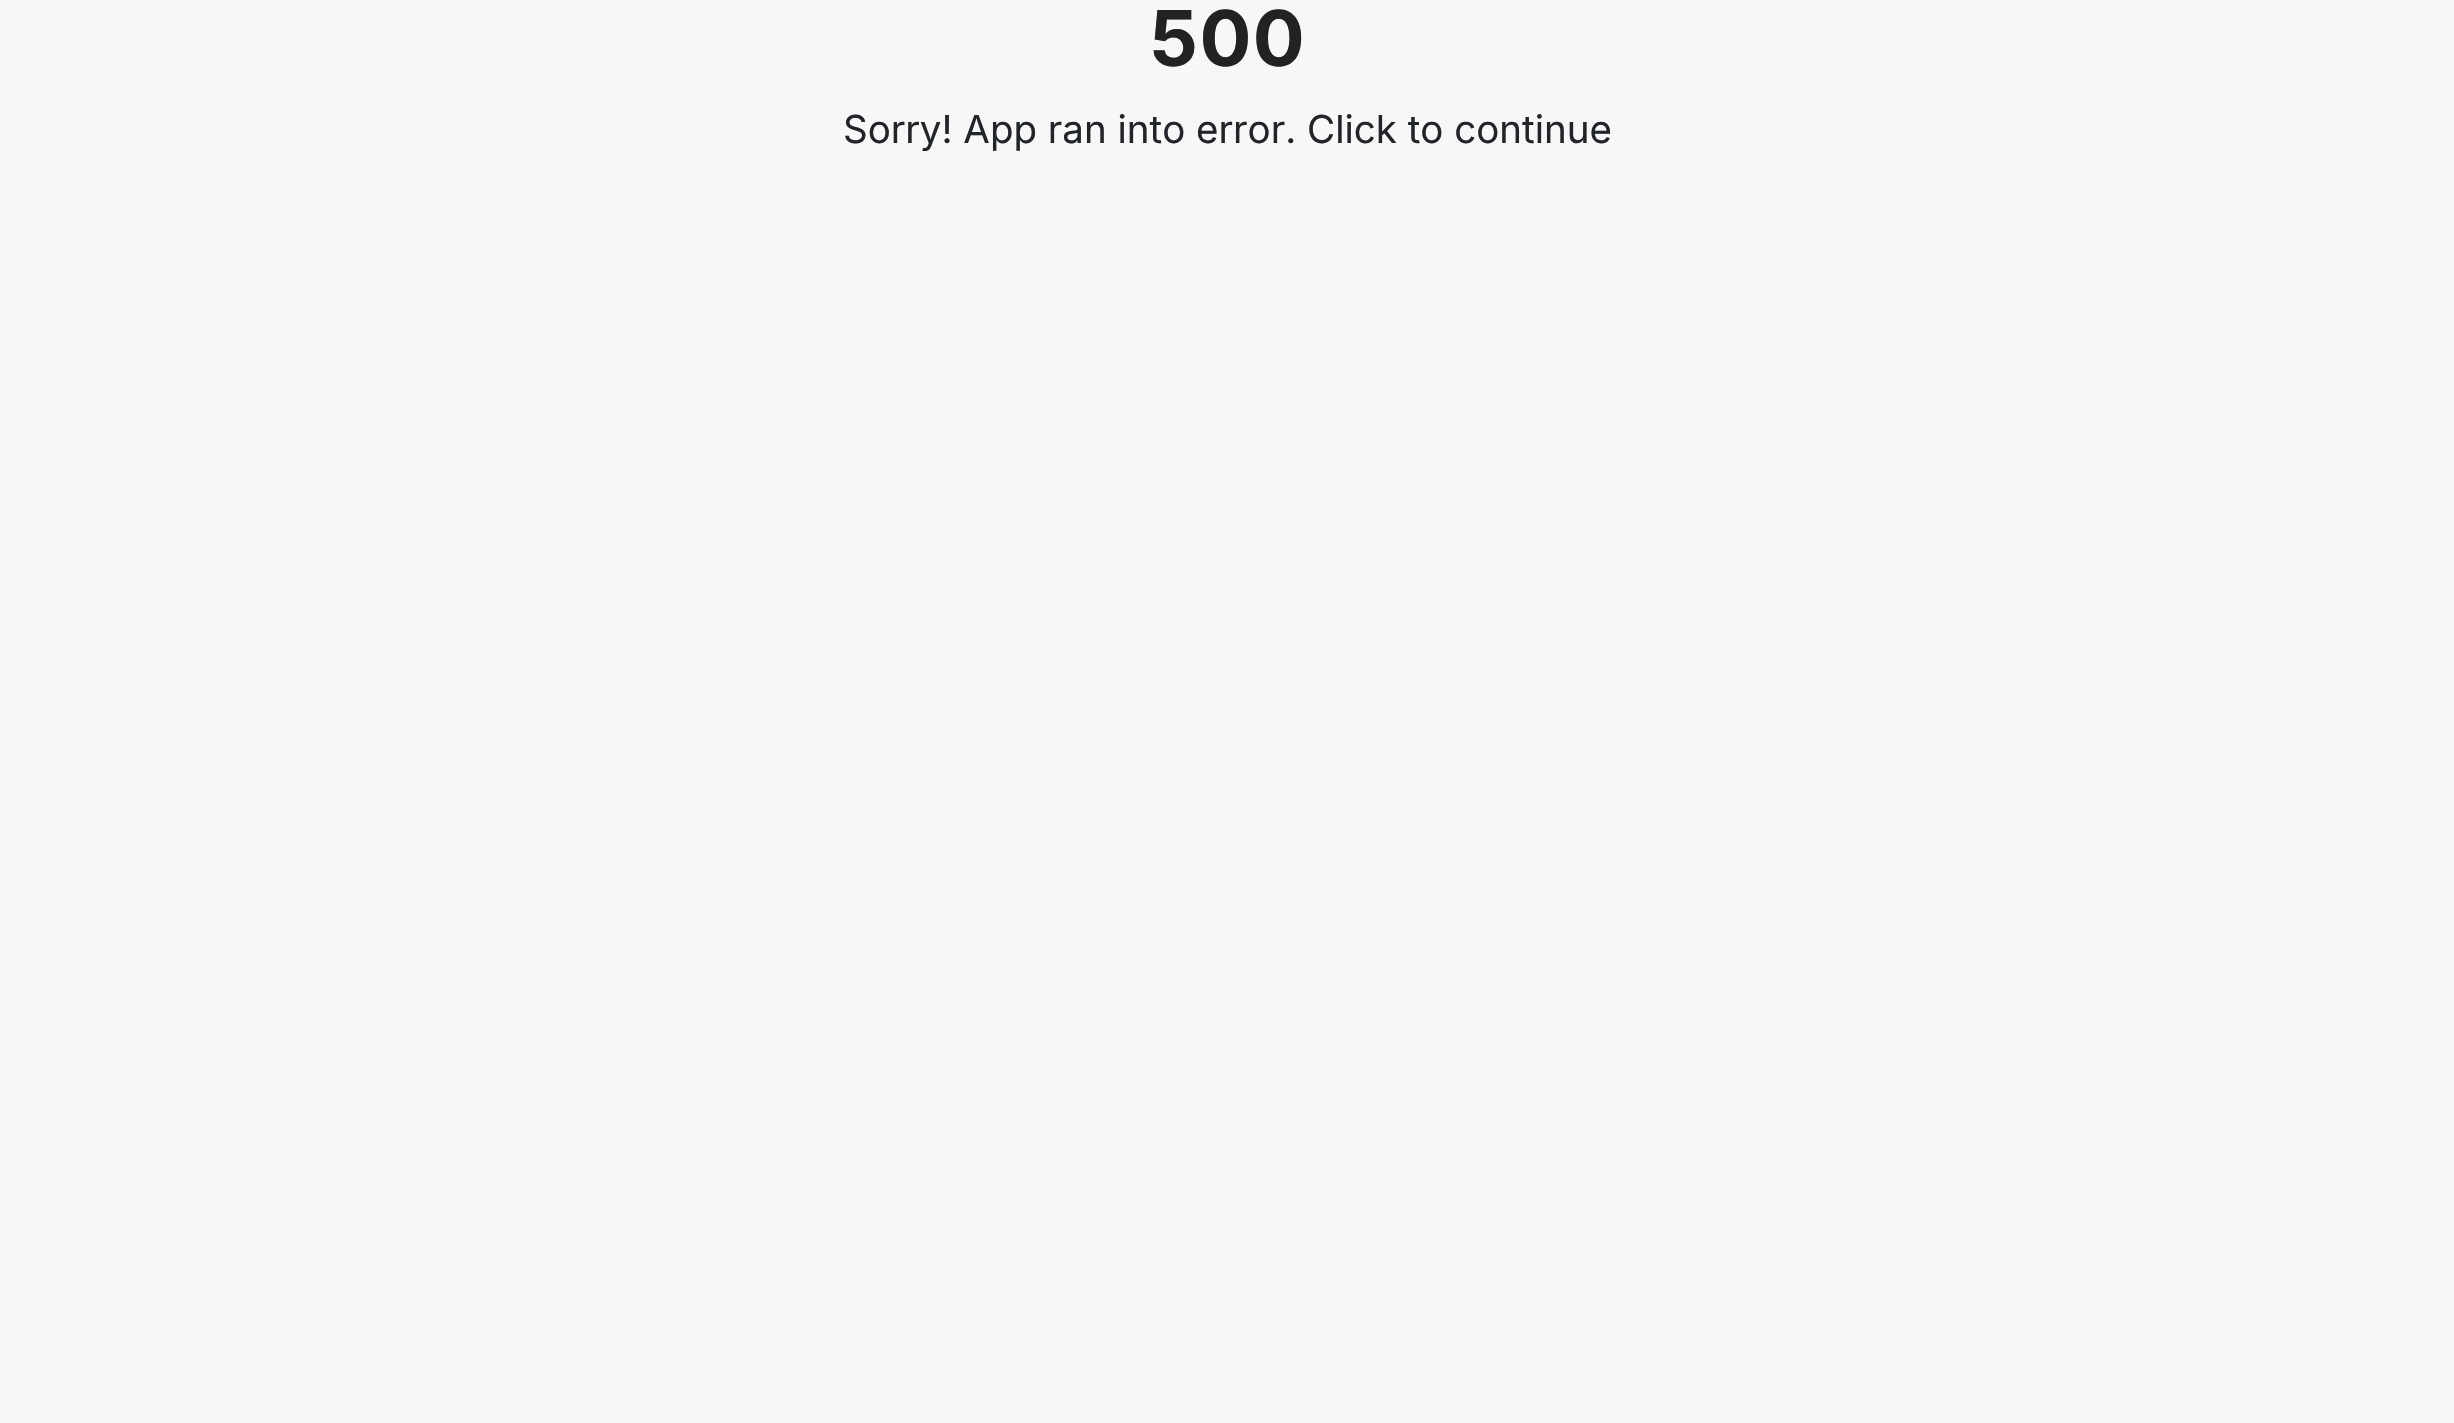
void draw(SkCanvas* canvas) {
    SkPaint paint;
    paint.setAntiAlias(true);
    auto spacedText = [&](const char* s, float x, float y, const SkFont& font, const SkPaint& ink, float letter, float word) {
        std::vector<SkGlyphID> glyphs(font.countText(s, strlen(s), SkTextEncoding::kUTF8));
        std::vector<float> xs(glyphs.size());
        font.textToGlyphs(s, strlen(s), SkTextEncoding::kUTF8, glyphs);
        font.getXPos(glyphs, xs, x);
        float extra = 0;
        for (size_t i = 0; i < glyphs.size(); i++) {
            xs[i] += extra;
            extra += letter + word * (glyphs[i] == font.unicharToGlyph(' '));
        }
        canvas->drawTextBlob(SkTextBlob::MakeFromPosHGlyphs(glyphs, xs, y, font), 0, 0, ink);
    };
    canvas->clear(0xFFF7F7F7);
    SkFont font1(fontMgr->matchFamilyStyle("Inter", SkFontStyle::Bold()), 77);
    font1.setSubpixel(true);
    paint.setColor(0xFF222222);
    spacedText("500", 1150, 66, font1, paint, 1.5f, 0);
    SkFont font2(fontMgr->matchFamilyStyle("Inter", SkFontStyle::Normal()), 38.5f);
    font2.setSubpixel(true);
    paint.setColor(0xFF212529);
    canvas->drawString("Sorry! App ran into error. Click to continue", 843, 143, font2, paint);
}
